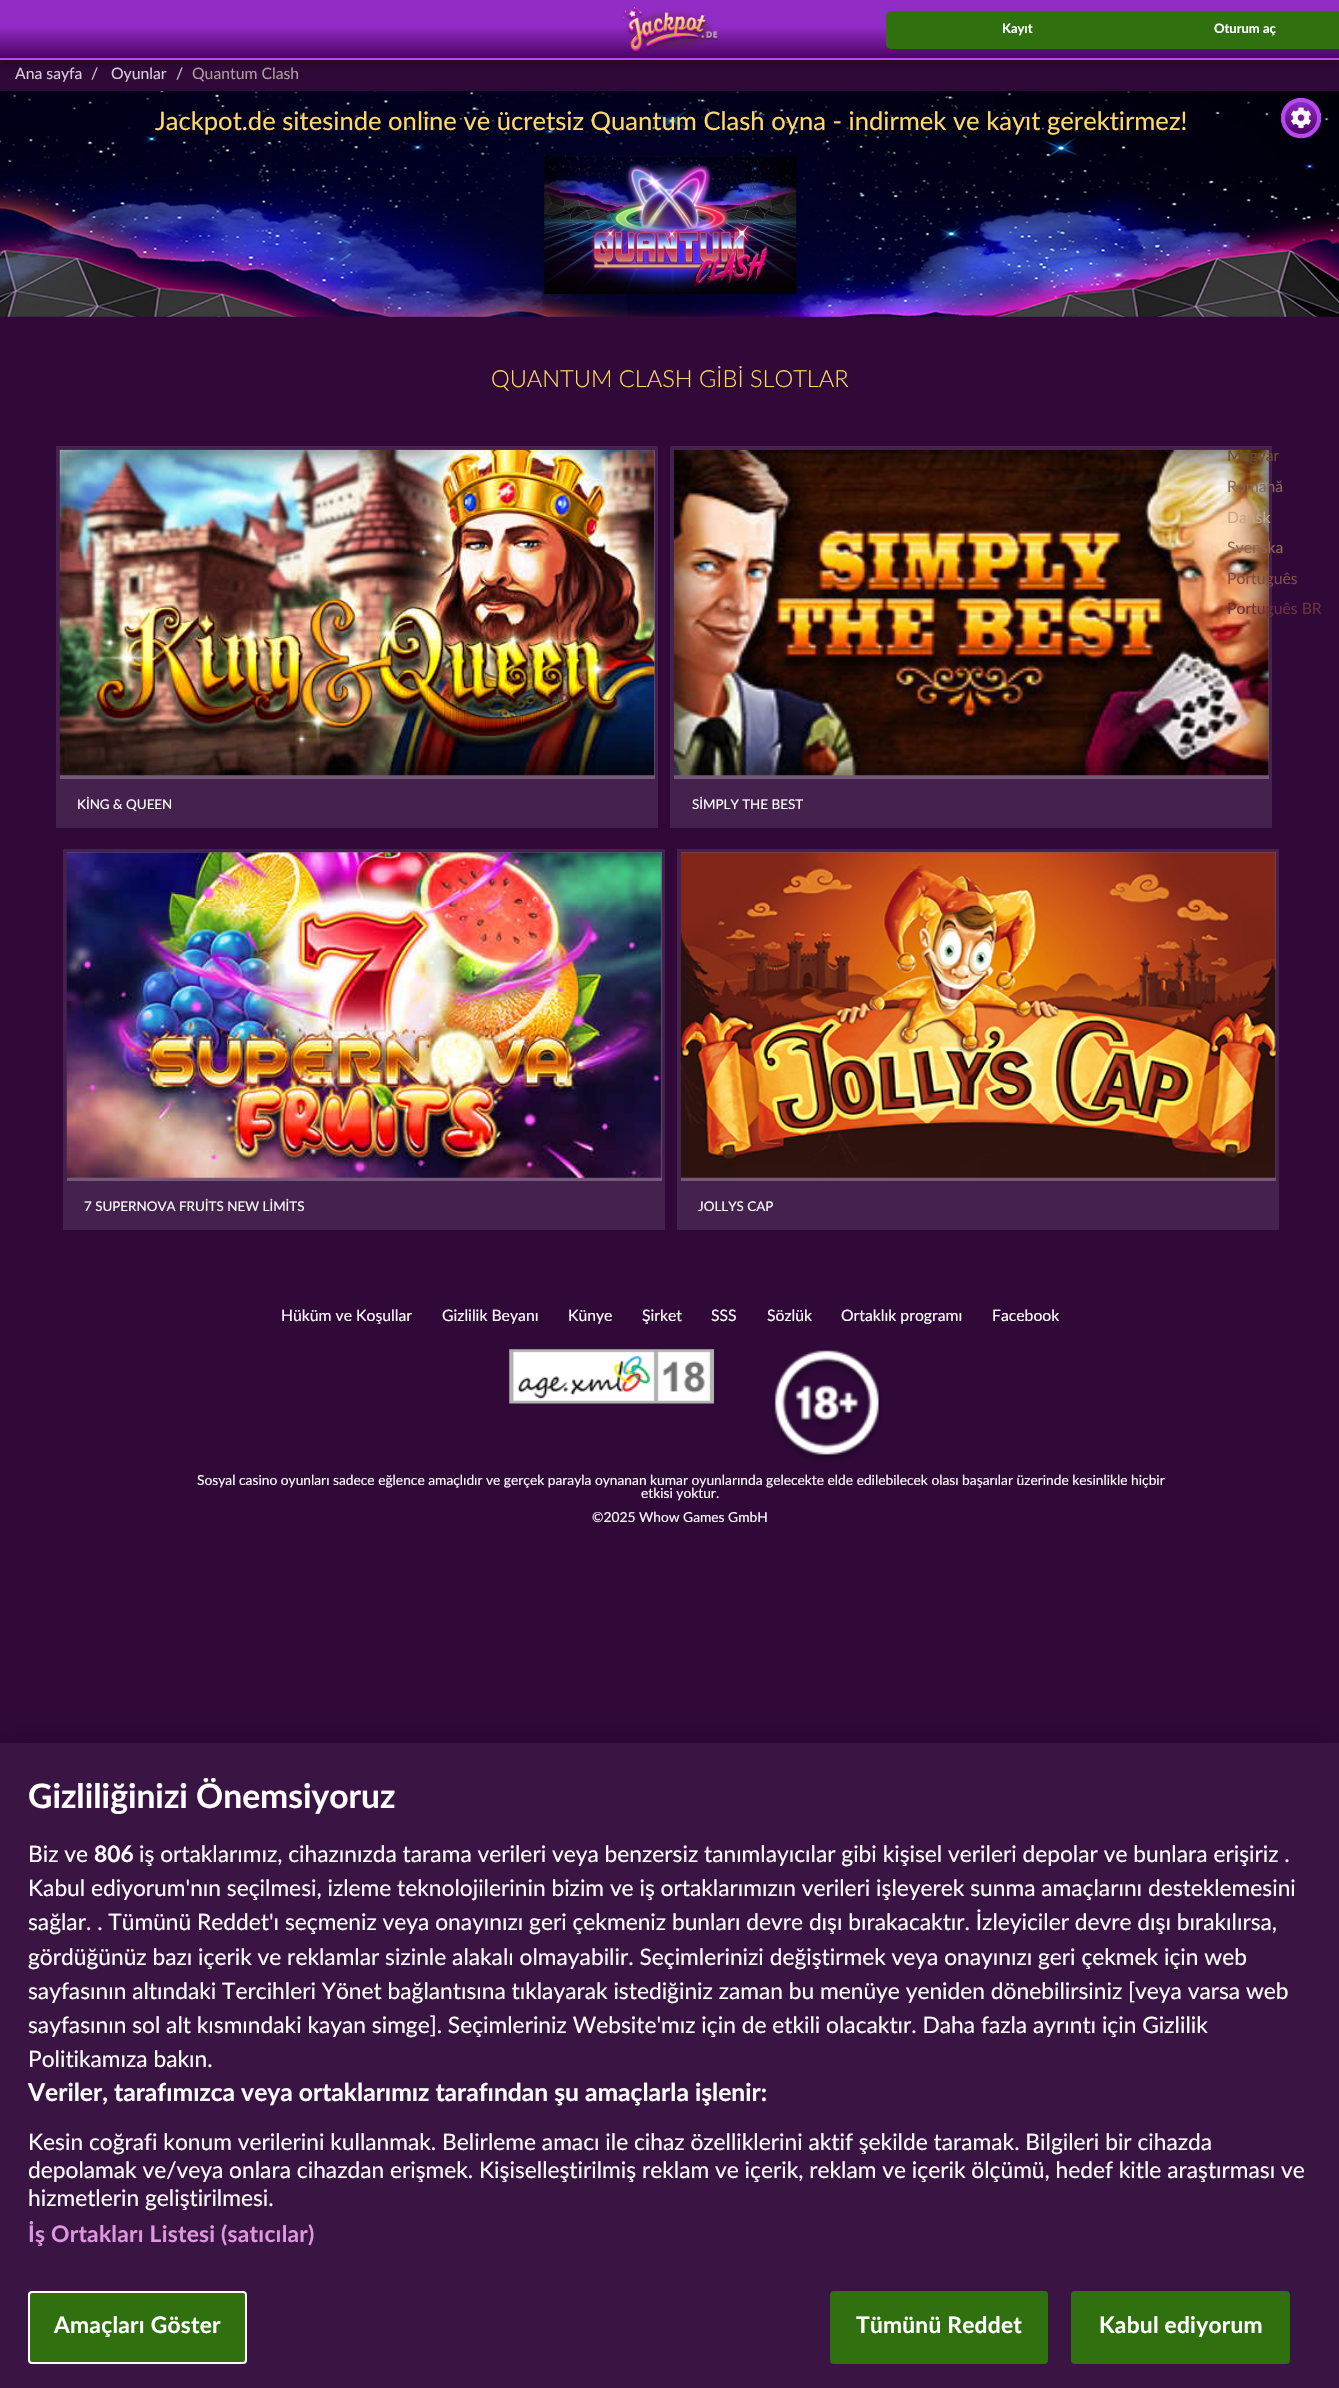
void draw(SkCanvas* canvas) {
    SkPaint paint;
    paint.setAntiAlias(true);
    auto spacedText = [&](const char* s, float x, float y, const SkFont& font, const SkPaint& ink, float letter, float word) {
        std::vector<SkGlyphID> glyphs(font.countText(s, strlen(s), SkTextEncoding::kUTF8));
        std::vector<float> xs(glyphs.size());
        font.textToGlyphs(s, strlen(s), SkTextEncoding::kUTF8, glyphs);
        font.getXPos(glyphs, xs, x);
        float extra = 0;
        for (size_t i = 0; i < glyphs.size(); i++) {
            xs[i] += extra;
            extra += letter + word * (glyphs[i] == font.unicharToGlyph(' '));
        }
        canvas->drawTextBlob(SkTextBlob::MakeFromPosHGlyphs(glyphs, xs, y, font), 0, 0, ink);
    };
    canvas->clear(0xFF300939);
    paint.setColor(0x4D000000);
    paint.setMaskFilter(SkMaskFilter::MakeBlur(kNormal_SkBlurStyle, 4.5f));
    canvas->drawRect(SkRect::MakeXYWH(0, 4, 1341, 59), paint);
    paint.setMaskFilter(nullptr);
    {
        const SkColor colors[] = {0xFF912CC5, 0xFF4D0264};
        const float stops[] = {0.45f, 1};
        const SkPoint ends[] = {{670, 0}, {670, 58}};
        paint.setShader(SkGradientShader::MakeLinear(ends, colors, stops, 2, SkTileMode::kClamp));
        paint.setAlpha(255);
    }
    canvas->drawRect(SkRect::MakeXYWH(0, 0, 1339, 58), paint);
    paint.setShader(nullptr);
    paint.setColor(0xFFB849F1);
    canvas->drawRect(SkRect::MakeXYWH(0, 58, 1339, 2), paint);
    canvas->drawImageRect(SkImages::DeferredFromEncodedData(SkData::MakeFromFileName("img1.png")), SkRect::MakeXYWH(622, 6, 97, 48), SkSamplingOptions());
    paint.setColor(0xFF30700F);
    canvas->drawRoundRect(SkRect::MakeXYWH(886, 11, 262, 38), 5, 5, paint);
    SkFont font1(fontMgr->matchFamilyStyle("Lato", SkFontStyle::Bold()), 13);
    font1.setSubpixel(true);
    paint.setColor(0xFFFFFFFF);
    canvas->drawString("Kayıt", 1002, 33, font1, paint);
    paint.setColor(0xFF30700F);
    canvas->drawRoundRect(SkRect::MakeXYWH(1113, 11, 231, 38), 5, 5, paint);
    paint.setColor(0xFFFFFFFF);
    canvas->drawString("Oturum aç", 1214, 33, font1, paint);
    SkFont font2(fontMgr->matchFamilyStyle("Lato", SkFontStyle::Normal()), 15.75f);
    font2.setSubpixel(true);
    paint.setColor(0xFFD6CED7);
    canvas->drawString("Ana sayfa", 15, 79, font2, paint);
    paint.setColor(0xFFCCCCCC);
    canvas->drawString("/", 91, 79, font2, paint);
    paint.setColor(0xFFD6CED7);
    canvas->drawString("Oyunlar", 111, 79, font2, paint);
    paint.setColor(0xFFCCCCCC);
    canvas->drawString("/", 176, 79, font2, paint);
    paint.setColor(0xFFAC9D9D);
    canvas->drawString("Quantum Clash", 192, 79, font2, paint);
    canvas->drawImageRect(SkImages::DeferredFromEncodedData(SkData::MakeFromFileName("img2.png")), SkRect::MakeXYWH(0, 91, 1339, 226), SkSamplingOptions());
    SkFont font3(fontMgr->matchFamilyStyle("Lato", SkFontStyle::Normal()), 25.6f);
    font3.setSubpixel(true);
    paint.setColor(0xFFFFD966);
    canvas->drawString("Jackpot.de sitesinde online ve ücretsiz Quantum Clash oyna - indirmek ve kayıt gerektirmez!", 155, 130, font3, paint);
    canvas->drawImageRect(SkImages::DeferredFromEncodedData(SkData::MakeFromFileName("img3.png")), SkRect::MakeXYWH(544, 155, 253, 139), SkSamplingOptions());
    SkFont font4(fontMgr->matchFamilyStyle("Lato", SkFontStyle(300, SkFontStyle::kNormal_Width, SkFontStyle::kUpright_Slant)), 23.6f);
    font4.setSubpixel(true);
    canvas->drawString("QUANTUM CLASH GİBİ SLOTLAR", 491, 387, font4, paint);
    paint.setColor(0xFF45224D);
    canvas->drawRect(SkRect::MakeXYWH(56, 446, 602, 382), paint);
    paint.setColor(0xFF74597A);
    canvas->drawRect(SkRect::MakeXYWH(60, 450, 595, 329), paint);
    canvas->drawImageRect(SkImages::DeferredFromEncodedData(SkData::MakeFromFileName("img4.png")), SkRect::MakeXYWH(59, 449, 596, 327), SkSamplingOptions());
    SkFont font5(fontMgr->matchFamilyStyle("Lato", SkFontStyle::Normal()), 13.4f);
    font5.setSubpixel(true);
    paint.setColor(0xFFFFFFFF);
    canvas->drawString("KİNG & QUEEN", 77, 809, font5, paint);
    paint.setColor(0xFF45224D);
    canvas->drawRect(SkRect::MakeXYWH(670, 446, 602, 382), paint);
    paint.setColor(0xFF74597A);
    canvas->drawRect(SkRect::MakeXYWH(674, 450, 595, 329), paint);
    canvas->drawImageRect(SkImages::DeferredFromEncodedData(SkData::MakeFromFileName("img5.png")), SkRect::MakeXYWH(673, 449, 596, 327), SkSamplingOptions());
    paint.setColor(0xFFFFFFFF);
    canvas->drawString("SİMPLY THE BEST", 692, 809, font5, paint);
    paint.setColor(0xFF45224D);
    canvas->drawRect(SkRect::MakeXYWH(63, 849, 602, 381), paint);
    paint.setColor(0xFF74597A);
    canvas->drawRect(SkRect::MakeXYWH(67, 852, 595, 329), paint);
    canvas->drawImageRect(SkImages::DeferredFromEncodedData(SkData::MakeFromFileName("img6.png")), SkRect::MakeXYWH(66, 852, 596, 326), SkSamplingOptions());
    paint.setColor(0xFFFFFFFF);
    canvas->drawString("7 SUPERNOVA FRUİTS NEW LİMİTS", 84, 1211, font5, paint);
    paint.setColor(0xFF45224D);
    canvas->drawRect(SkRect::MakeXYWH(677, 849, 602, 381), paint);
    paint.setColor(0xFF74597A);
    canvas->drawRect(SkRect::MakeXYWH(681, 852, 595, 329), paint);
    canvas->drawImageRect(SkImages::DeferredFromEncodedData(SkData::MakeFromFileName("img7.png")), SkRect::MakeXYWH(680, 852, 596, 326), SkSamplingOptions());
    paint.setColor(0xFFFFFFFF);
    canvas->drawString("JOLLYS CAP", 698, 1211, font5, paint);
    canvas->drawImageRect(SkImages::DeferredFromEncodedData(SkData::MakeFromFileName("img8.png")), SkRect::MakeXYWH(1281, 98, 41, 41), SkSamplingOptions());
    paint.setStyle(SkPaint::kStroke_Style);
    paint.setStrokeWidth(4);
    paint.setColor(0xFFB849F1);
    canvas->drawCircle(1301, 118, 18, paint);
    paint.setStyle(SkPaint::kFill_Style);
    paint.setColor(0xFF6D4D37);
    canvas->drawString("Magyar", 1227, 461, font2, paint);
    paint.setColor(0xFF8A685B);
    canvas->drawString("Română", 1227, 492, font2, paint);
    paint.setColor(0xFFC8A685);
    canvas->drawString("Dansk", 1227, 523, font2, paint);
    paint.setColor(0xFF926557);
    canvas->drawString("Svenska", 1227, 553, font2, paint);
    paint.setColor(0xFF814B48);
    canvas->drawString("Português", 1227, 584, font2, paint);
    paint.setColor(0xFF6B313D);
    canvas->drawString("Português BR", 1227, 614, font2, paint);
    paint.setColor(0xFFFFFFFF);
    canvas->drawString("Hüküm ve Koşullar", 281, 1321, font2, paint);
    canvas->drawString("Gizlilik Beyanı", 442, 1321, font2, paint);
    canvas->drawString("Künye", 568, 1321, font2, paint);
    canvas->drawString("Şirket", 642, 1321, font2, paint);
    canvas->drawString("SSS", 711, 1321, font2, paint);
    canvas->drawString("Sözlük", 767, 1321, font2, paint);
    canvas->drawString("Ortaklık programı", 841, 1321, font2, paint);
    canvas->drawString("Facebook", 992, 1321, font2, paint);
    canvas->drawImageRect(SkImages::DeferredFromEncodedData(SkData::MakeFromFileName("img9.png")), SkRect::MakeXYWH(509, 1349, 205, 55), SkSamplingOptions());
    canvas->drawImageRect(SkImages::DeferredFromEncodedData(SkData::MakeFromFileName("img10.png")), SkRect::MakeXYWH(772, 1350, 110, 113), SkSamplingOptions());
    SkFont font6(fontMgr->matchFamilyStyle("Lato", SkFontStyle::Normal()), 13.78f);
    font6.setSubpixel(true);
    canvas->drawString("Sosyal casino oyunları sadece eğlence amaçlıdır ve gerçek parayla oynanan kumar oyunlarında gelecekte elde edilebilecek olası başarılar üzerinde kesinlikle hiçbir", 197, 1485, font6, paint);
    canvas->drawString("etkisi yoktur.", 641, 1498, font6, paint);
    canvas->drawString("©2025 Whow Games GmbH", 592, 1522, font6, paint);
    paint.setColor(0x33000000);
    paint.setMaskFilter(SkMaskFilter::MakeBlur(kNormal_SkBlurStyle, 16));
    canvas->drawRect(SkRect::MakeXYWH(0, 1743, 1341, 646), paint);
    paint.setMaskFilter(nullptr);
    paint.setColor(0xFF3A1443);
    canvas->drawRect(SkRect::MakeXYWH(0, 1743, 1339, 645), paint);
    canvas->save();
    canvas->clipRect(SkRect::MakeXYWH(28, 1778, 1285, 495));
    SkFont font7(fontMgr->matchFamilyStyle("Lato", SkFontStyle::Bold()), 33.6f);
    font7.setSubpixel(true);
    paint.setColor(0xFFFFFFFF);
    canvas->drawString("Gizliliğinizi Önemsiyoruz", 28, 1808, font7, paint);
    canvas->restore();
    SkFont font8(fontMgr->matchFamilyStyle("Lato", SkFontStyle::Normal()), 22.75f);
    font8.setSubpixel(true);
    canvas->drawString("Biz ve", 28, 1862, font8, paint);
    SkFont font9(fontMgr->matchFamilyStyle("Lato", SkFontStyle::Bold()), 22.75f);
    font9.setSubpixel(true);
    canvas->drawString("806", 94, 1862, font9, paint);
    canvas->drawString("iş ortaklarımız, cihazınızda tarama verileri veya benzersiz tanımlayıcılar gibi kişisel verileri depolar ve bunlara erişiriz .", 139, 1862, font8, paint);
    canvas->drawString("Kabul ediyorum'nın seçilmesi, izleme teknolojilerinin bizim ve iş ortaklarımızın verileri işleyerek sunma amaçlarını desteklemesini", 28, 1896, font8, paint);
    canvas->drawString("sağlar. . Tümünü Reddet'ı seçmeniz veya onayınızı geri çekmeniz bunları devre dışı bırakacaktır. İzleyiciler devre dışı bırakılırsa,", 28, 1930, font8, paint);
    canvas->drawString("gördüğünüz bazı içerik ve reklamlar sizinle alakalı olmayabilir. Seçimlerinizi değiştirmek veya onayınızı geri çekmek için web", 28, 1965, font8, paint);
    canvas->drawString("sayfasının altındaki Tercihleri Yönet bağlantısına tıklayarak istediğiniz zaman bu menüye yeniden dönebilirsiniz [veya varsa web", 28, 1999, font8, paint);
    canvas->drawString("sayfasının sol alt kısmındaki kayan simge]. Seçimleriniz Website'mız için de etkili olacaktır. Daha fazla ayrıntı için Gizlilik", 28, 2033, font8, paint);
    canvas->drawString("Politikamıza bakın.", 28, 2067, font8, paint);
    SkFont font10(fontMgr->matchFamilyStyle("Lato", SkFontStyle::Bold()), 24.65f);
    font10.setSubpixel(true);
    canvas->drawString("Veriler, tarafımızca veya ortaklarımız tarafından şu amaçlarla işlenir:", 28, 2101, font10, paint);
    canvas->drawString("Kesin coğrafi konum verilerini kullanmak. Belirleme amacı ile cihaz özelliklerini aktif şekilde taramak. Bilgileri bir cihazda", 28, 2150, font8, paint);
    canvas->drawString("depolamak ve/veya onlara cihazdan erişmek. Kişiselleştirilmiş reklam ve içerik, reklam ve içerik ölçümü, hedef kitle araştırması ve", 28, 2178, font8, paint);
    canvas->drawString("hizmetlerin geliştirilmesi.", 28, 2206, font8, paint);
    paint.setColor(0xFFDD97DD);
    spacedText("İş Ortakları Listesi (satıcılar)", 28, 2242, font9, paint, 0.25f, 0);
    paint.setColor(0xFF30700F);
    canvas->drawRoundRect(SkRect::MakeXYWH(29, 2292, 217, 71), 3, 3, paint);
    paint.setStyle(SkPaint::kStroke_Style);
    paint.setStrokeWidth(2);
    paint.setColor(0xFFFFFFFF);
    canvas->drawRoundRect(SkRect::MakeXYWH(29, 2292, 217, 71), 3, 3, paint);
    paint.setStyle(SkPaint::kFill_Style);
    spacedText("Amaçları Göster", 54, 2333, font9, paint, 0.25f, 0);
    paint.setColor(0xFF30700F);
    canvas->drawRoundRect(SkRect::MakeXYWH(831, 2292, 216, 71), 3, 3, paint);
    paint.setStyle(SkPaint::kStroke_Style);
    canvas->drawRoundRect(SkRect::MakeXYWH(831, 2292, 216, 71), 3, 3, paint);
    paint.setStyle(SkPaint::kFill_Style);
    paint.setColor(0xFFFFFFFF);
    spacedText("Tümünü Reddet", 856, 2333, font9, paint, 0.25f, 0);
    paint.setColor(0xFF30700F);
    canvas->drawRoundRect(SkRect::MakeXYWH(1072, 2292, 217, 71), 3, 3, paint);
    paint.setStyle(SkPaint::kStroke_Style);
    canvas->drawRoundRect(SkRect::MakeXYWH(1072, 2292, 217, 71), 3, 3, paint);
    paint.setStyle(SkPaint::kFill_Style);
    paint.setColor(0xFFFFFFFF);
    spacedText("Kabul ediyorum", 1099, 2333, font9, paint, 0.25f, 0);
}
